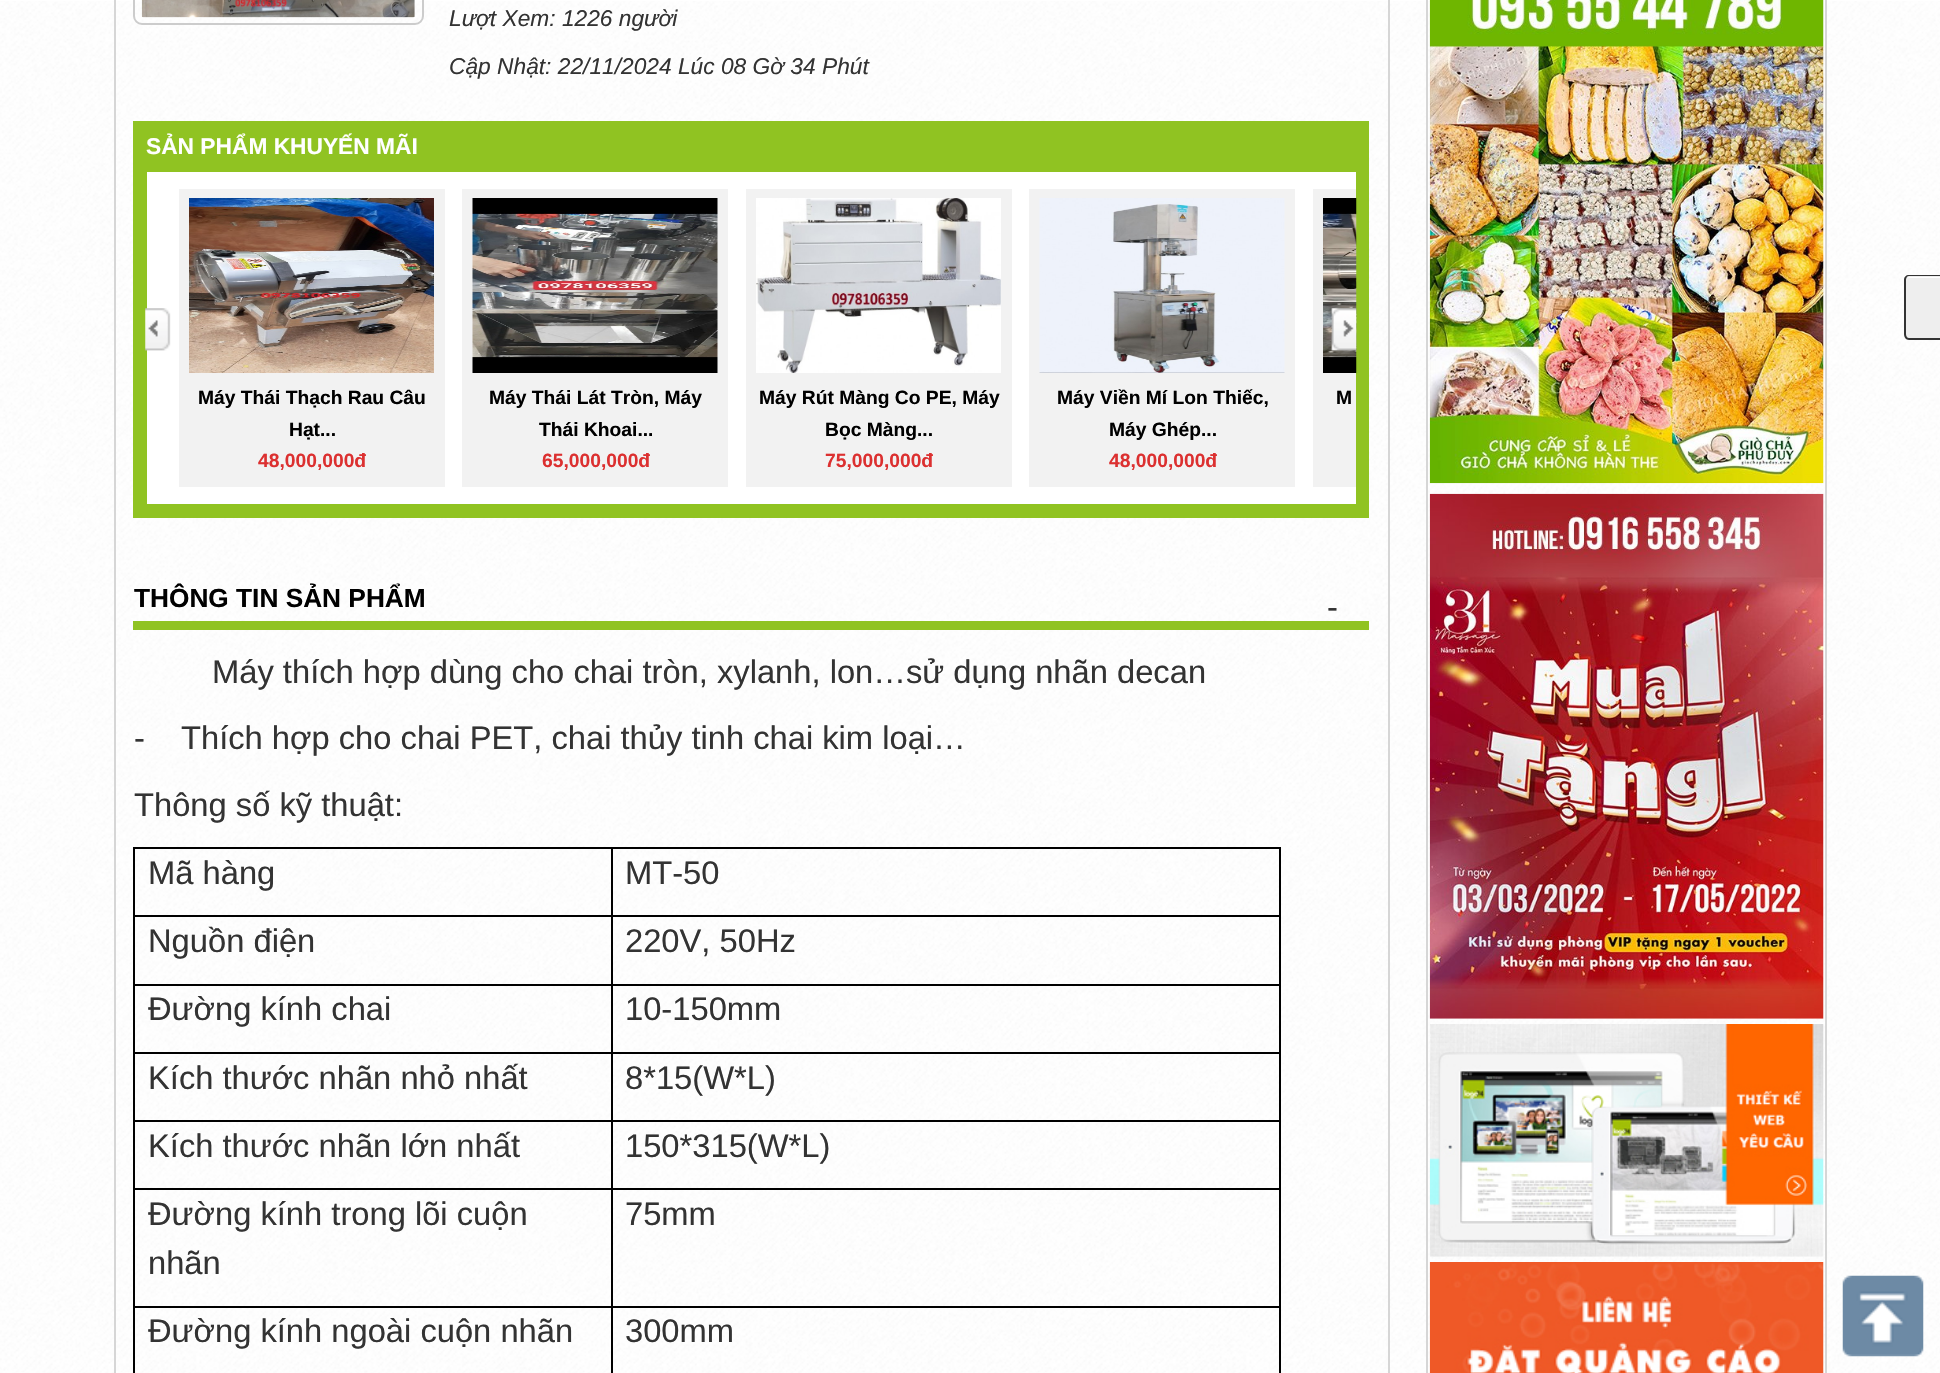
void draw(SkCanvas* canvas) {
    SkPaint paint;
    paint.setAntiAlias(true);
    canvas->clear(0xFFFFFFFF);
    canvas->drawImageRect(SkImages::DeferredFromEncodedData(SkData::MakeFromFileName("img1.png")), SkRect::MakeXYWH(0, 1, 1940, 1372), SkSamplingOptions());
    paint.setStyle(SkPaint::kStroke_Style);
    paint.setStrokeWidth(2);
    paint.setColor(0xFFD6D6D6);
    canvas->drawRect(SkRect::MakeXYWH(115, -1, 1274, 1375), paint);
    paint.setColor(0xFFCCCCCC);
    canvas->drawRoundRect(SkRect::MakeXYWH(134, -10, 289, 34), 8, 8, paint);
    canvas->drawImageRect(SkImages::DeferredFromEncodedData(SkData::MakeFromFileName("img2.png")), SkRect::MakeXYWH(141, 0, 274, 18), SkSamplingOptions());
    SkFont font1(fontMgr->matchFamilyStyle("Liberation Sans", SkFontStyle::Italic()), 22.75f);
    font1.setSubpixel(true);
    paint.setStyle(SkPaint::kFill_Style);
    paint.setColor(0xFF333333);
    canvas->drawString("Lượt Xem: 1226 người", 449, 26, font1, paint);
    canvas->drawString("Cập Nhật: 22/11/2024 Lúc 08 Gờ 34 Phút", 449, 74, font1, paint);
    paint.setColor(0xFF90C322);
    canvas->drawRect(SkRect::MakeXYWH(133, 121, 1236, 397), paint);
    SkFont font2(fontMgr->matchFamilyStyle("Liberation Sans", SkFontStyle::Bold()), 22.75f);
    font2.setSubpixel(true);
    paint.setColor(0xFFFFFFFF);
    canvas->drawString("SẢN PHẨM KHUYẾN MÃI", 146, 154, font2, paint);
    canvas->drawRect(SkRect::MakeXYWH(147, 172, 1209, 332), paint);
    canvas->drawImageRect(SkImages::DeferredFromEncodedData(SkData::MakeFromFileName("img3.png")), SkRect::MakeXYWH(145, 308, 26, 43), SkSamplingOptions());
    paint.setColor(0xFFF2F2F2);
    canvas->drawRect(SkRect::MakeXYWH(1313, 189, 43, 298), paint);
    canvas->drawImageRect(SkImages::DeferredFromEncodedData(SkData::MakeFromFileName("img9.png")), SkRect::MakeXYWH(1323, 198, 34, 175), SkSamplingOptions());
    canvas->drawImageRect(SkImages::DeferredFromEncodedData(SkData::MakeFromFileName("img4.png")), SkRect::MakeXYWH(1331, 308, 26, 43), SkSamplingOptions());
    canvas->drawRect(SkRect::MakeXYWH(179, 189, 266, 298), paint);
    canvas->drawImageRect(SkImages::DeferredFromEncodedData(SkData::MakeFromFileName("img5.png")), SkRect::MakeXYWH(189, 198, 245, 175), SkSamplingOptions());
    SkFont font3(fontMgr->matchFamilyStyle("Liberation Sans", SkFontStyle::Bold()), 19.25f);
    font3.setSubpixel(true);
    paint.setColor(0xFF000000);
    canvas->drawString("Máy Thái Thạch Rau Câu", 198, 404, font3, paint);
    canvas->drawString("Hạt...", 289, 436, font3, paint);
    paint.setColor(0xFFDC3030);
    canvas->drawString("48,000,000đ", 258, 467, font3, paint);
    paint.setColor(0xFFF2F2F2);
    canvas->drawRect(SkRect::MakeXYWH(462, 189, 266, 298), paint);
    canvas->drawImageRect(SkImages::DeferredFromEncodedData(SkData::MakeFromFileName("img6.png")), SkRect::MakeXYWH(472, 198, 246, 175), SkSamplingOptions());
    paint.setColor(0xFF000000);
    canvas->drawString("Máy Thái Lát Tròn, Máy", 489, 404, font3, paint);
    canvas->drawString("Thái Khoai...", 539, 436, font3, paint);
    paint.setColor(0xFFDC3030);
    canvas->drawString("65,000,000đ", 542, 467, font3, paint);
    paint.setColor(0xFFF2F2F2);
    canvas->drawRect(SkRect::MakeXYWH(746, 189, 266, 298), paint);
    canvas->drawImageRect(SkImages::DeferredFromEncodedData(SkData::MakeFromFileName("img7.png")), SkRect::MakeXYWH(756, 198, 245, 175), SkSamplingOptions());
    paint.setColor(0xFF000000);
    canvas->drawString("Máy Rút Màng Co PE, Máy", 759, 404, font3, paint);
    canvas->drawString("Bọc Màng...", 825, 436, font3, paint);
    paint.setColor(0xFFDC3030);
    canvas->drawString("75,000,000đ", 825, 467, font3, paint);
    paint.setColor(0xFFF2F2F2);
    canvas->drawRect(SkRect::MakeXYWH(1029, 189, 266, 298), paint);
    canvas->drawImageRect(SkImages::DeferredFromEncodedData(SkData::MakeFromFileName("img8.png")), SkRect::MakeXYWH(1039, 198, 246, 175), SkSamplingOptions());
    paint.setColor(0xFF000000);
    canvas->drawString("Máy Viền Mí Lon Thiếc,", 1057, 404, font3, paint);
    canvas->drawString("Máy Ghép...", 1109, 436, font3, paint);
    paint.setColor(0xFFDC3030);
    canvas->drawString("48,000,000đ", 1109, 467, font3, paint);
    paint.setColor(0xFF000000);
    canvas->drawString("M", 1336, 404, font3, paint);
    paint.setColor(0xFF90C322);
    canvas->drawRect(SkRect::MakeXYWH(133, 621, 1236, 9), paint);
    SkFont font4(fontMgr->matchFamilyStyle("Liberation Sans", SkFontStyle::Bold()), 26.25f);
    font4.setSubpixel(true);
    paint.setColor(0xFF000000);
    canvas->drawString("THÔNG TIN SẢN PHẨM", 134, 607, font4, paint);
    SkFont font5(fontMgr->matchFamilyStyle("Liberation Sans", SkFontStyle::Normal()), 32.7f);
    font5.setSubpixel(true);
    paint.setColor(0xFF333333);
    canvas->drawString("-", 1327, 618, font5, paint);
    canvas->drawString("Máy thích hợp dùng cho chai tròn, xylanh, lon…sử dụng nhãn decan", 212, 683, font5, paint);
    canvas->drawString("-", 134, 749, font5, paint);
    canvas->drawString("Thích hợp cho chai PET, chai thủy tinh chai kim loại…", 181, 749, font5, paint);
    canvas->drawString("Thông số kỹ thuật:", 134, 816, font5, paint);
    paint.setColor(0xFF000000);
    canvas->drawRect(SkRect::MakeXYWH(133, 847, 1148, 2), paint);
    canvas->drawRect(SkRect::MakeXYWH(1279, 915, 2, 458), paint);
    canvas->drawRect(SkRect::MakeXYWH(1279, 847, 2, 70), paint);
    canvas->drawRect(SkRect::MakeXYWH(611, 1306, 2, 67), paint);
    canvas->drawRect(SkRect::MakeXYWH(611, 1306, 670, 2), paint);
    canvas->drawRect(SkRect::MakeXYWH(611, 1188, 2, 119), paint);
    canvas->drawRect(SkRect::MakeXYWH(611, 1188, 670, 2), paint);
    canvas->drawRect(SkRect::MakeXYWH(611, 1120, 2, 70), paint);
    canvas->drawRect(SkRect::MakeXYWH(611, 1120, 670, 2), paint);
    canvas->drawRect(SkRect::MakeXYWH(611, 1052, 2, 70), paint);
    canvas->drawRect(SkRect::MakeXYWH(611, 1052, 670, 2), paint);
    canvas->drawRect(SkRect::MakeXYWH(611, 984, 2, 70), paint);
    canvas->drawRect(SkRect::MakeXYWH(611, 984, 670, 2), paint);
    canvas->drawRect(SkRect::MakeXYWH(611, 915, 2, 70), paint);
    canvas->drawRect(SkRect::MakeXYWH(611, 915, 670, 2), paint);
    canvas->drawRect(SkRect::MakeXYWH(611, 847, 2, 70), paint);
    canvas->drawRect(SkRect::MakeXYWH(133, 1306, 2, 67), paint);
    canvas->drawRect(SkRect::MakeXYWH(133, 1306, 480, 2), paint);
    canvas->drawRect(SkRect::MakeXYWH(133, 1188, 2, 119), paint);
    canvas->drawRect(SkRect::MakeXYWH(133, 1188, 480, 2), paint);
    canvas->drawRect(SkRect::MakeXYWH(133, 1120, 2, 70), paint);
    canvas->drawRect(SkRect::MakeXYWH(133, 1120, 480, 2), paint);
    canvas->drawRect(SkRect::MakeXYWH(133, 1052, 2, 70), paint);
    canvas->drawRect(SkRect::MakeXYWH(133, 1052, 480, 2), paint);
    canvas->drawRect(SkRect::MakeXYWH(133, 984, 2, 70), paint);
    canvas->drawRect(SkRect::MakeXYWH(133, 984, 480, 2), paint);
    canvas->drawRect(SkRect::MakeXYWH(133, 915, 2, 70), paint);
    canvas->drawRect(SkRect::MakeXYWH(133, 915, 480, 2), paint);
    canvas->drawRect(SkRect::MakeXYWH(133, 847, 2, 70), paint);
    paint.setColor(0xFF333333);
    canvas->drawString("Mã hàng", 148, 884, font5, paint);
    canvas->drawString("MT-50", 625, 884, font5, paint);
    canvas->drawString("Nguồn điện", 148, 952, font5, paint);
    canvas->drawString("220V, 50Hz", 625, 952, font5, paint);
    canvas->drawString("Đường kính chai", 148, 1020, font5, paint);
    canvas->drawString("10-150mm", 625, 1020, font5, paint);
    canvas->drawString("Kích thước nhãn nhỏ nhất", 148, 1089, font5, paint);
    canvas->drawString("8*15(W*L)", 625, 1089, font5, paint);
    canvas->drawString("Kích thước nhãn lớn nhất", 148, 1157, font5, paint);
    canvas->drawString("150*315(W*L)", 625, 1157, font5, paint);
    canvas->drawString("Đường kính trong lõi cuộn", 148, 1225, font5, paint);
    canvas->drawString("nhãn", 148, 1274, font5, paint);
    canvas->drawString("75mm", 625, 1225, font5, paint);
    canvas->drawString("Đường kính ngoài cuộn nhãn", 148, 1342, font5, paint);
    canvas->drawString("300mm", 625, 1342, font5, paint);
    paint.setStyle(SkPaint::kStroke_Style);
    paint.setColor(0xFFD6D6D6);
    canvas->drawRect(SkRect::MakeXYWH(1427, -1, 399, 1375), paint);
    canvas->drawImageRect(SkImages::DeferredFromEncodedData(SkData::MakeFromFileName("img10.png")), SkRect::MakeXYWH(1429, 0, 395, 484), SkSamplingOptions());
    canvas->drawImageRect(SkImages::DeferredFromEncodedData(SkData::MakeFromFileName("img11.png")), SkRect::MakeXYWH(1429, 493, 395, 526), SkSamplingOptions());
    canvas->drawImageRect(SkImages::DeferredFromEncodedData(SkData::MakeFromFileName("img12.png")), SkRect::MakeXYWH(1429, 1024, 395, 233), SkSamplingOptions());
    canvas->drawImageRect(SkImages::DeferredFromEncodedData(SkData::MakeFromFileName("img13.png")), SkRect::MakeXYWH(1429, 1262, 395, 111), SkSamplingOptions());
    paint.setStyle(SkPaint::kFill_Style);
    paint.setColor(0xFFEEEEEE);
    canvas->drawPath(SkPathBuilder().moveTo(1909, 275).lineTo(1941, 275).lineTo(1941, 340).lineTo(1909, 340).cubicTo(1906, 340, 1904, 338, 1904, 335).lineTo(1904, 280).cubicTo(1904, 277, 1906, 275, 1909, 275).close().detach(), paint);
    paint.setColor(0xFFFFFFFF);
    canvas->drawPath(SkPathBuilder().moveTo(1909, 278).lineTo(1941, 278).lineTo(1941, 277).lineTo(1910, 277).cubicTo(1908, 277, 1906, 279, 1906, 281).lineTo(1906, 282).cubicTo(1906, 280, 1907, 278, 1909, 278).close().detach(), paint);
    paint.setColor(0xFF333333);
    canvas->drawPath(SkPathBuilder(SkPathFillType::kEvenOdd).moveTo(1909, 275).lineTo(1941, 275).lineTo(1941, 340).lineTo(1909, 340).cubicTo(1906, 340, 1904, 337, 1904, 334).lineTo(1904, 280).cubicTo(1904, 277, 1906, 275, 1909, 275).close().moveTo(1909, 276).lineTo(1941, 276).lineTo(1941, 338).lineTo(1909, 338).cubicTo(1907, 338, 1906, 336, 1906, 334).lineTo(1906, 280).cubicTo(1906, 278, 1907, 276, 1909, 276).close().detach(), paint);
    canvas->drawImageRect(SkImages::DeferredFromEncodedData(SkData::MakeFromFileName("img14.png")), SkRect::MakeXYWH(1842, 1275, 82, 82), SkSamplingOptions());
}
